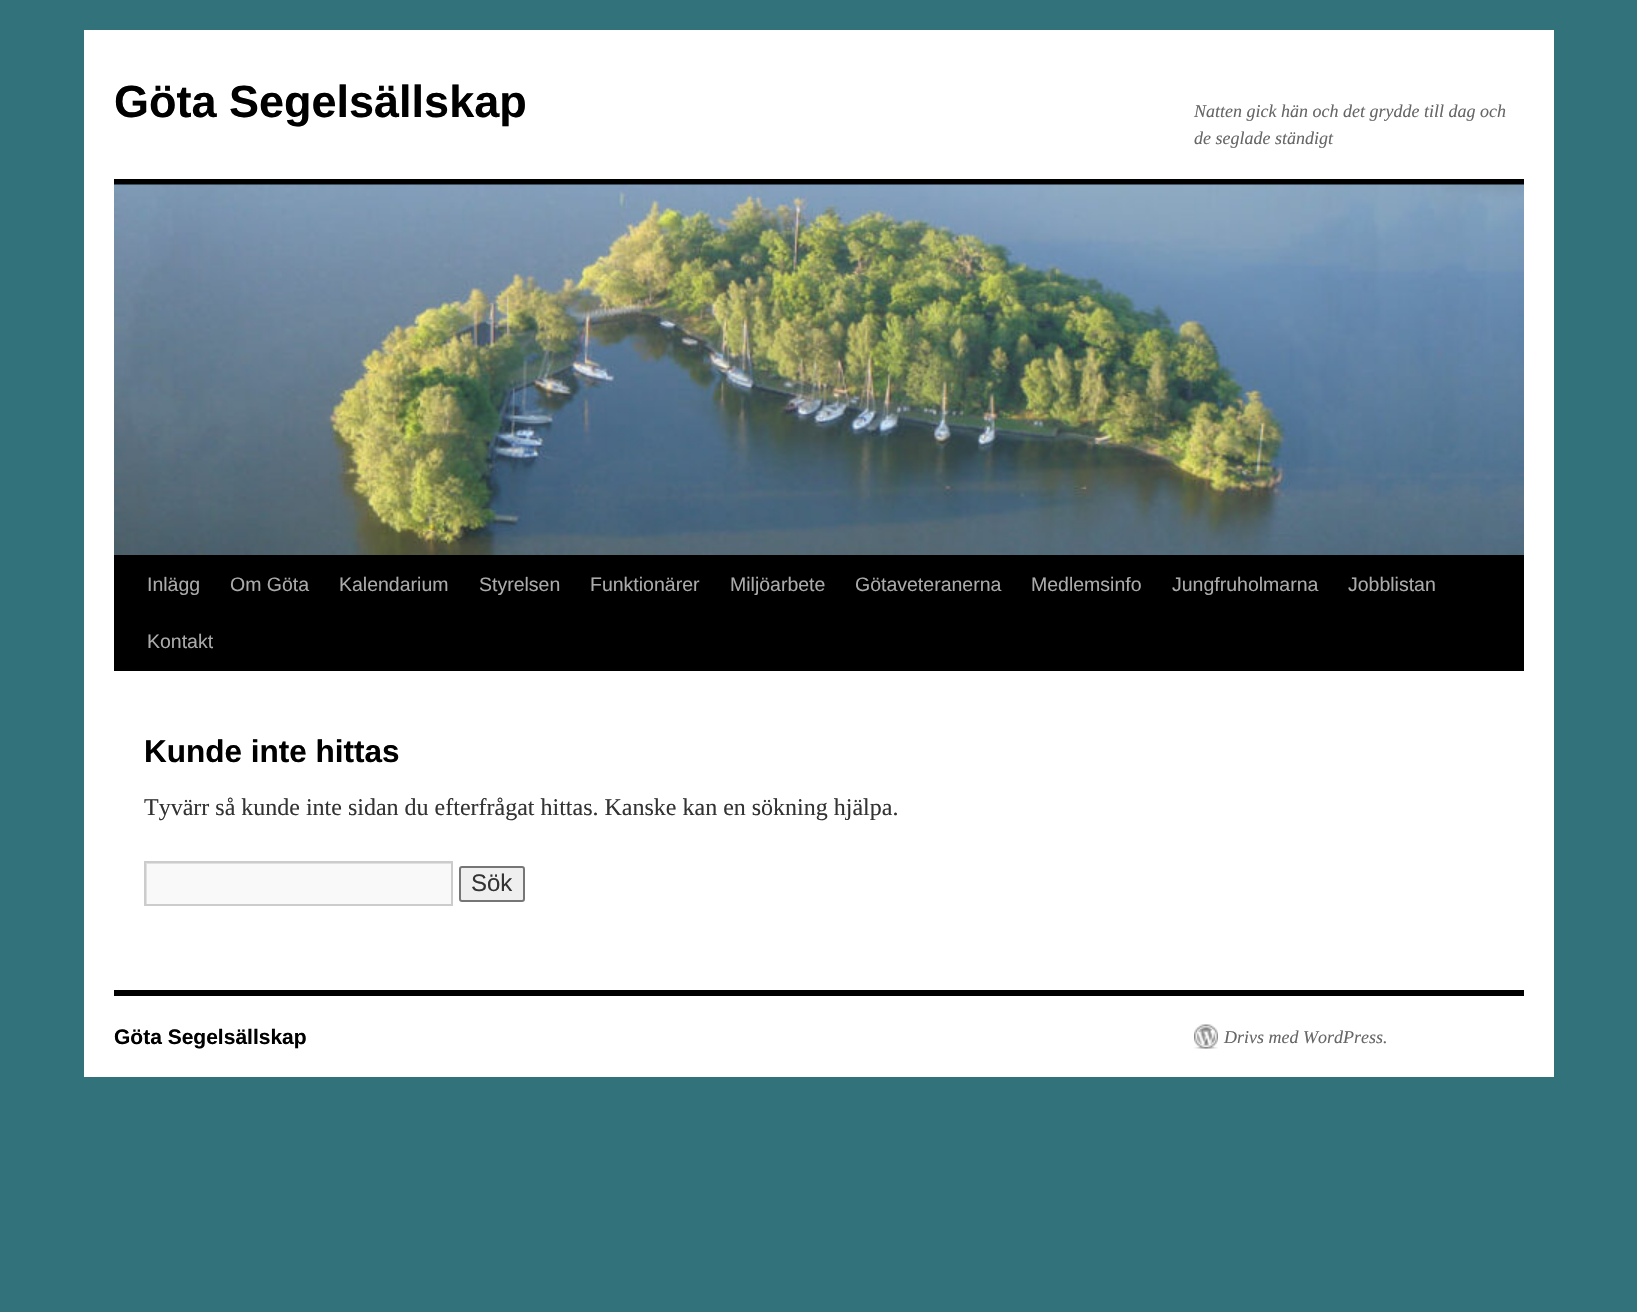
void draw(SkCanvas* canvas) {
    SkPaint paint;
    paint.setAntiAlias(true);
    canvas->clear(0xFF32737B);
    paint.setColor(0xFFFFFFFF);
    canvas->drawRect(SkRect::MakeXYWH(84, 30, 1470, 1047), paint);
    SkFont font1(fontMgr->matchFamilyStyle("Liberation Sans", SkFontStyle::Bold()), 45);
    font1.setSubpixel(true);
    paint.setColor(0xFF000000);
    canvas->drawString("Göta Segelsällskap", 114, 117, font1, paint);
    SkFont font2(fontMgr->matchFamilyStyle("Liberation Serif", SkFontStyle::Italic()), 18);
    font2.setSubpixel(true);
    paint.setColor(0xFF666666);
    canvas->drawString("Natten gick hän och det grydde till dag och", 1194, 117, font2, paint);
    canvas->drawString("de seglade ständigt", 1194, 144, font2, paint);
    paint.setColor(0xFF000000);
    canvas->drawRect(SkRect::MakeXYWH(114, 179, 1410, 6), paint);
    canvas->drawRect(SkRect::MakeXYWH(114, 555, 1410, 116), paint);
    canvas->drawImageRect(SkImages::DeferredFromEncodedData(SkData::MakeFromFileName("img1.png")), SkRect::MakeXYWH(114, 184, 1410, 371), SkSamplingOptions());
    SkFont font3(fontMgr->matchFamilyStyle("Liberation Sans", SkFontStyle::Normal()), 19.5f);
    font3.setSubpixel(true);
    paint.setColor(0xFFAAAAAA);
    canvas->drawString("Inlägg", 147, 591, font3, paint);
    canvas->drawString("Om Göta", 230, 591, font3, paint);
    canvas->drawString("Kalendarium", 339, 591, font3, paint);
    canvas->drawString("Styrelsen", 479, 591, font3, paint);
    canvas->drawString("Funktionärer", 590, 591, font3, paint);
    canvas->drawString("Miljöarbete", 730, 591, font3, paint);
    canvas->drawString("Götaveteranerna", 855, 591, font3, paint);
    canvas->drawString("Medlemsinfo", 1031, 591, font3, paint);
    canvas->drawString("Jungfruholmarna", 1172, 591, font3, paint);
    canvas->drawString("Jobblistan", 1348, 591, font3, paint);
    canvas->drawString("Kontakt", 147, 648, font3, paint);
    SkFont font4(fontMgr->matchFamilyStyle("Liberation Sans", SkFontStyle::Bold()), 31.5f);
    font4.setSubpixel(true);
    paint.setColor(0xFF000000);
    canvas->drawString("Kunde inte hittas", 144, 762, font4, paint);
    SkFont font5(fontMgr->matchFamilyStyle("Liberation Serif", SkFontStyle::Normal()), 24);
    font5.setSubpixel(true);
    paint.setColor(0xFF333333);
    canvas->drawString("Tyvärr så kunde inte sidan du efterfrågat hittas. Kanske kan en sökning hjälpa.", 144, 815, font5, paint);
    paint.setColor(0xFFF9F9F9);
    canvas->drawRect(SkRect::MakeXYWH(147, 864, 304, 40), paint);
    canvas->save();
    canvas->clipRect(SkRect::MakeXYWH(146, 863, 306, 42));
    paint.setColor(0xFFE0E0E0);
    canvas->drawPath(SkPathBuilder(SkPathFillType::kEvenOdd).moveTo(-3, 714).lineTo(600, 714).lineTo(600, 1053).lineTo(-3, 1053).close().moveTo(147, 864).lineTo(453, 864).lineTo(453, 906).lineTo(147, 906).close().detach(), paint);
    canvas->restore();
    paint.setStyle(SkPaint::kStroke_Style);
    paint.setStrokeWidth(2);
    paint.setColor(0xFFCCCCCC);
    canvas->drawRect(SkRect::MakeXYWH(145, 862, 307, 43), paint);
    paint.setStyle(SkPaint::kFill_Style);
    paint.setColor(0xFFEFEFEF);
    canvas->drawRoundRect(SkRect::MakeXYWH(460, 867, 64, 34), 2, 2, paint);
    paint.setStyle(SkPaint::kStroke_Style);
    paint.setColor(0xFF767676);
    canvas->drawRoundRect(SkRect::MakeXYWH(460, 867, 64, 34), 2, 2, paint);
    SkFont font6(fontMgr->matchFamilyStyle("Liberation Sans", SkFontStyle::Normal()), 24);
    font6.setSubpixel(true);
    paint.setStyle(SkPaint::kFill_Style);
    paint.setColor(0xFF333333);
    canvas->drawString("Sök", 471, 891, font6, paint);
    paint.setColor(0xFF000000);
    canvas->drawRect(SkRect::MakeXYWH(114, 990, 1410, 6), paint);
    SkFont font7(fontMgr->matchFamilyStyle("Liberation Sans", SkFontStyle::Bold()), 21);
    font7.setSubpixel(true);
    canvas->drawString("Göta Segelsällskap", 114, 1044, font7, paint);
    canvas->drawImageRect(SkImages::DeferredFromEncodedData(SkData::MakeFromFileName("img2.png")), SkRect::MakeXYWH(1194, 1024, 24, 25), SkSamplingOptions());
    paint.setColor(0xFF666666);
    canvas->drawString("Drivs med WordPress.", 1224, 1043, font2, paint);
}
